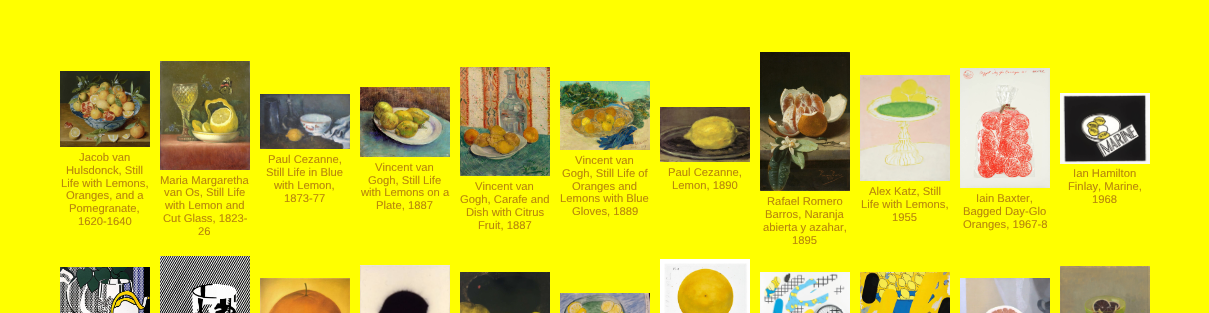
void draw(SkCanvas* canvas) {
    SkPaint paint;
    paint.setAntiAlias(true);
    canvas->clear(0xFFFFFF00);
    canvas->drawImageRect(SkImages::DeferredFromEncodedData(SkData::MakeFromFileName("img1.png")), SkRect::MakeXYWH(60, 71, 90, 76), SkSamplingOptions());
    SkFont font1(fontMgr->matchFamilyStyle("Liberation Sans", SkFontStyle::Normal()), 11.25f);
    font1.setSubpixel(true);
    paint.setColor(0xFFB8860B);
    canvas->drawString("Jacob van", 79, 161, font1, paint);
    canvas->drawString("Hulsdonck, Still", 66, 174, font1, paint);
    canvas->drawString("Life with Lemons,", 61, 187, font1, paint);
    canvas->drawString("Oranges, and a", 66, 199, font1, paint);
    canvas->drawString("Pomegranate,", 69, 212, font1, paint);
    canvas->drawString("1620-1640", 78, 225, font1, paint);
    canvas->drawImageRect(SkImages::DeferredFromEncodedData(SkData::MakeFromFileName("img2.png")), SkRect::MakeXYWH(160, 61, 90, 109), SkSamplingOptions());
    canvas->drawString("Maria Margaretha", 160, 184, font1, paint);
    canvas->drawString("van Os, Still Life", 164, 196, font1, paint);
    canvas->drawString("with Lemon and", 165, 209, font1, paint);
    canvas->drawString("Cut Glass, 1823-", 163, 222, font1, paint);
    canvas->drawString("26", 198, 235, font1, paint);
    canvas->drawImageRect(SkImages::DeferredFromEncodedData(SkData::MakeFromFileName("img3.png")), SkRect::MakeXYWH(260, 94, 90, 55), SkSamplingOptions());
    canvas->drawString("Paul Cezanne,", 268, 163, font1, paint);
    canvas->drawString("Still Life in Blue", 266, 176, font1, paint);
    canvas->drawString("with Lemon,", 274, 189, font1, paint);
    canvas->drawString("1873-77", 284, 202, font1, paint);
    canvas->drawImageRect(SkImages::DeferredFromEncodedData(SkData::MakeFromFileName("img4.png")), SkRect::MakeXYWH(360, 87, 90, 70), SkSamplingOptions());
    canvas->drawString("Vincent van", 375, 171, font1, paint);
    canvas->drawString("Gogh, Still Life", 368, 184, font1, paint);
    canvas->drawString("with Lemons on a", 361, 196, font1, paint);
    canvas->drawString("Plate, 1887", 376, 209, font1, paint);
    canvas->drawImageRect(SkImages::DeferredFromEncodedData(SkData::MakeFromFileName("img5.png")), SkRect::MakeXYWH(460, 67, 90, 109), SkSamplingOptions());
    canvas->drawString("Vincent van", 475, 190, font1, paint);
    canvas->drawString("Gogh, Carafe and", 460, 203, font1, paint);
    canvas->drawString("Dish with Citrus", 466, 216, font1, paint);
    canvas->drawString("Fruit, 1887", 478, 229, font1, paint);
    canvas->drawImageRect(SkImages::DeferredFromEncodedData(SkData::MakeFromFileName("img6.png")), SkRect::MakeXYWH(560, 81, 90, 69), SkSamplingOptions());
    canvas->drawString("Vincent van", 575, 164, font1, paint);
    canvas->drawString("Gogh, Still Life of", 562, 177, font1, paint);
    canvas->drawString("Oranges and", 572, 190, font1, paint);
    canvas->drawString("Lemons with Blue", 560, 202, font1, paint);
    canvas->drawString("Gloves, 1889", 572, 215, font1, paint);
    canvas->drawImageRect(SkImages::DeferredFromEncodedData(SkData::MakeFromFileName("img7.png")), SkRect::MakeXYWH(660, 107, 90, 55), SkSamplingOptions());
    canvas->drawString("Paul Cezanne,", 668, 176, font1, paint);
    canvas->drawString("Lemon, 1890", 672, 189, font1, paint);
    canvas->drawImageRect(SkImages::DeferredFromEncodedData(SkData::MakeFromFileName("img8.png")), SkRect::MakeXYWH(760, 52, 90, 139), SkSamplingOptions());
    canvas->drawString("Rafael Romero", 767, 205, font1, paint);
    canvas->drawString("Barros, Naranja", 765, 218, font1, paint);
    canvas->drawString("abierta y azahar,", 763, 231, font1, paint);
    canvas->drawString("1895", 792, 244, font1, paint);
    canvas->drawImageRect(SkImages::DeferredFromEncodedData(SkData::MakeFromFileName("img9.png")), SkRect::MakeXYWH(860, 75, 90, 106), SkSamplingOptions());
    canvas->drawString("Alex Katz, Still", 869, 195, font1, paint);
    canvas->drawString("Life with Lemons,", 861, 208, font1, paint);
    canvas->drawString("1955", 892, 221, font1, paint);
    canvas->drawImageRect(SkImages::DeferredFromEncodedData(SkData::MakeFromFileName("img10.png")), SkRect::MakeXYWH(960, 68, 90, 120), SkSamplingOptions());
    canvas->drawString("Iain Baxter,", 976, 202, font1, paint);
    canvas->drawString("Bagged Day-Glo", 963, 215, font1, paint);
    canvas->drawString("Oranges, 1967-8", 963, 228, font1, paint);
    canvas->drawImageRect(SkImages::DeferredFromEncodedData(SkData::MakeFromFileName("img11.png")), SkRect::MakeXYWH(1060, 93, 90, 71), SkSamplingOptions());
    canvas->drawString("Ian Hamilton", 1073, 177, font1, paint);
    canvas->drawString("Finlay, Marine,", 1068, 190, font1, paint);
    canvas->drawString("1968", 1092, 203, font1, paint);
    canvas->drawImageRect(SkImages::DeferredFromEncodedData(SkData::MakeFromFileName("img12.png")), SkRect::MakeXYWH(60, 267, 90, 46), SkSamplingOptions());
    canvas->drawImageRect(SkImages::DeferredFromEncodedData(SkData::MakeFromFileName("img13.png")), SkRect::MakeXYWH(160, 256, 90, 57), SkSamplingOptions());
    canvas->drawImageRect(SkImages::DeferredFromEncodedData(SkData::MakeFromFileName("img14.png")), SkRect::MakeXYWH(260, 278, 90, 35), SkSamplingOptions());
    canvas->drawImageRect(SkImages::DeferredFromEncodedData(SkData::MakeFromFileName("img15.png")), SkRect::MakeXYWH(360, 265, 90, 48), SkSamplingOptions());
    canvas->drawImageRect(SkImages::DeferredFromEncodedData(SkData::MakeFromFileName("img16.png")), SkRect::MakeXYWH(460, 272, 90, 41), SkSamplingOptions());
    canvas->drawImageRect(SkImages::DeferredFromEncodedData(SkData::MakeFromFileName("img17.png")), SkRect::MakeXYWH(560, 293, 90, 20), SkSamplingOptions());
    canvas->drawImageRect(SkImages::DeferredFromEncodedData(SkData::MakeFromFileName("img18.png")), SkRect::MakeXYWH(660, 259, 90, 54), SkSamplingOptions());
    canvas->drawImageRect(SkImages::DeferredFromEncodedData(SkData::MakeFromFileName("img19.png")), SkRect::MakeXYWH(760, 272, 90, 41), SkSamplingOptions());
    canvas->drawImageRect(SkImages::DeferredFromEncodedData(SkData::MakeFromFileName("img20.png")), SkRect::MakeXYWH(860, 272, 90, 41), SkSamplingOptions());
    canvas->drawImageRect(SkImages::DeferredFromEncodedData(SkData::MakeFromFileName("img21.png")), SkRect::MakeXYWH(960, 278, 90, 35), SkSamplingOptions());
    canvas->drawImageRect(SkImages::DeferredFromEncodedData(SkData::MakeFromFileName("img22.png")), SkRect::MakeXYWH(1060, 266, 90, 47), SkSamplingOptions());
}
